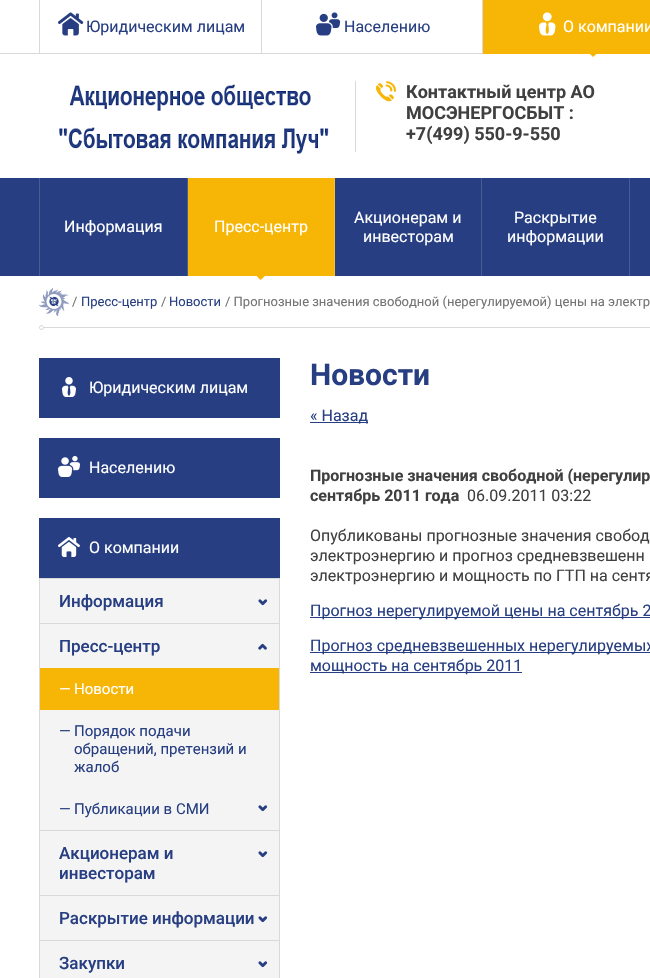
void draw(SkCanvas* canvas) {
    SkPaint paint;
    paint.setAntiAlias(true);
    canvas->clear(0xFFFFFFFF);
    paint.setColor(0xFFD9D9D9);
    canvas->drawRect(SkRect::MakeXYWH(0, 53, 483, 1), paint);
    canvas->drawRect(SkRect::MakeXYWH(261, 0, 1, 53), paint);
    canvas->drawRect(SkRect::MakeXYWH(39, 0, 1, 53), paint);
    canvas->drawImageRect(SkImages::DeferredFromEncodedData(SkData::MakeFromFileName("img1.png")), SkRect::MakeXYWH(58, 12, 26, 24), SkSamplingOptions());
    SkFont font1(fontMgr->matchFamilyStyle("Roboto", SkFontStyle::Normal()), 16);
    font1.setSubpixel(true);
    paint.setColor(0xFF273F82);
    canvas->drawString("Юридическим лицам", 86, 32, font1, paint);
    paint.setColor(0xFFD9D9D9);
    canvas->drawRect(SkRect::MakeXYWH(482, 0, 1, 53), paint);
    canvas->drawImageRect(SkImages::DeferredFromEncodedData(SkData::MakeFromFileName("img2.png")), SkRect::MakeXYWH(316, 12, 25, 24), SkSamplingOptions());
    paint.setColor(0xFF273F82);
    canvas->drawString("Населению", 344, 32, font1, paint);
    paint.setColor(0xFFF7B606);
    canvas->drawRect(SkRect::MakeXYWH(483, 0, 167, 54), paint);
    canvas->drawImageRect(SkImages::DeferredFromEncodedData(SkData::MakeFromFileName("img3.png")), SkRect::MakeXYWH(539, 12, 17, 24), SkSamplingOptions());
    paint.setColor(0xFFFFFFFF);
    canvas->drawString("О компании", 563, 32, font1, paint);
    paint.setColor(0xFFF7B606);
    canvas->drawPath(SkPathBuilder().moveTo(593, 49).lineTo(597.5f, 53).lineTo(593, 57).lineTo(589, 53).close().detach(), paint);
    canvas->drawImageRect(SkImages::DeferredFromEncodedData(SkData::MakeFromFileName("img4.png")), SkRect::MakeXYWH(59, 84, 270, 70), SkSamplingOptions());
    paint.setColor(0xFFD9D9D9);
    canvas->drawRect(SkRect::MakeXYWH(355, 81, 1, 71), paint);
    canvas->drawImageRect(SkImages::DeferredFromEncodedData(SkData::MakeFromFileName("img5.png")), SkRect::MakeXYWH(376, 81, 20, 21), SkSamplingOptions());
    SkFont font2(fontMgr->matchFamilyStyle("Roboto", SkFontStyle::Bold()), 18);
    font2.setSubpixel(true);
    paint.setColor(0xFF404040);
    canvas->drawString("Контактный центр АО", 406, 98, font2, paint);
    canvas->drawString("МОСЭНЕРГОСБЫТ :", 406, 119, font2, paint);
    canvas->drawString("+7(499) 550-9-550", 406, 140, font2, paint);
    paint.setColor(0xFF273F82);
    canvas->drawRect(SkRect::MakeXYWH(0, 178, 650, 98), paint);
    paint.setColor(0xFF475C95);
    canvas->drawRect(SkRect::MakeXYWH(187, 178, 1, 98), paint);
    canvas->drawRect(SkRect::MakeXYWH(39, 178, 1, 98), paint);
    paint.setColor(0xFFFFFFFF);
    canvas->drawString("Информация", 64, 232, font1, paint);
    paint.setColor(0xFFF7B606);
    canvas->drawRect(SkRect::MakeXYWH(188, 178, 146, 98), paint);
    paint.setColor(0xFFF8C12B);
    canvas->drawRect(SkRect::MakeXYWH(334, 178, 1, 98), paint);
    paint.setColor(0xFFFFFFFF);
    canvas->drawString("Пресс-центр", 214, 232, font1, paint);
    paint.setColor(0xFFF7B606);
    canvas->drawPath(SkPathBuilder().moveTo(260.5f, 272).lineTo(265, 276).lineTo(260.5f, 280).lineTo(256.5f, 276).close().detach(), paint);
    paint.setColor(0xFF475C95);
    canvas->drawRect(SkRect::MakeXYWH(481, 178, 1, 98), paint);
    paint.setColor(0xFFFFFFFF);
    canvas->drawString("Акционерам и", 354, 223, font1, paint);
    canvas->drawString("инвесторам", 363, 242, font1, paint);
    paint.setColor(0xFF475C95);
    canvas->drawRect(SkRect::MakeXYWH(629, 178, 1, 98), paint);
    paint.setColor(0xFFFFFFFF);
    canvas->drawString("Раскрытие", 514, 223, font1, paint);
    canvas->drawString("информации", 507, 242, font1, paint);
    paint.setColor(0xFFD9D9D9);
    canvas->drawRect(SkRect::MakeXYWH(39, 327, 611, 1), paint);
    canvas->drawImageRect(SkImages::DeferredFromEncodedData(SkData::MakeFromFileName("img6.png")), SkRect::MakeXYWH(39, 288, 30, 28), SkSamplingOptions());
    SkFont font3(fontMgr->matchFamilyStyle("Roboto", SkFontStyle::Normal()), 13);
    font3.setSubpixel(true);
    paint.setColor(0xFF737373);
    canvas->drawString("/", 72, 306, font3, paint);
    paint.setColor(0xFF273F82);
    canvas->drawString("Пресс-центр", 81, 306, font3, paint);
    paint.setColor(0xFF737373);
    canvas->drawString("/", 161, 306, font3, paint);
    paint.setColor(0xFF273F82);
    canvas->drawString("Новости", 169, 306, font3, paint);
    paint.setColor(0xFF737373);
    canvas->drawString("/ Прогнозные значения свободной (нерегулируемой) цены на электр", 225, 306, font3, paint);
    paint.setColor(0xFFFFFFFF);
    canvas->drawCircle(41.5f, 327.5f, 2, paint);
    paint.setStyle(SkPaint::kStroke_Style);
    paint.setStrokeWidth(1);
    paint.setColor(0xFFD9D9D9);
    canvas->drawCircle(41.5f, 327.5f, 2, paint);
    paint.setStyle(SkPaint::kFill_Style);
    paint.setColor(0xFF273F82);
    canvas->drawRect(SkRect::MakeXYWH(39, 358, 241, 60), paint);
    canvas->drawImageRect(SkImages::DeferredFromEncodedData(SkData::MakeFromFileName("img7.png")), SkRect::MakeXYWH(62, 377, 14, 20), SkSamplingOptions());
    paint.setColor(0xFFFFFFFF);
    canvas->drawString("Юридическим лицам", 89, 393, font1, paint);
    paint.setColor(0xFF273F82);
    canvas->drawRect(SkRect::MakeXYWH(39, 438, 241, 60), paint);
    canvas->drawImageRect(SkImages::DeferredFromEncodedData(SkData::MakeFromFileName("img8.png")), SkRect::MakeXYWH(58, 456, 22, 21), SkSamplingOptions());
    paint.setColor(0xFFFFFFFF);
    canvas->drawString("Населению", 89, 473, font1, paint);
    paint.setColor(0xFF273F82);
    canvas->drawRect(SkRect::MakeXYWH(39, 518, 241, 60), paint);
    canvas->drawImageRect(SkImages::DeferredFromEncodedData(SkData::MakeFromFileName("img9.png")), SkRect::MakeXYWH(58, 537, 22, 20), SkSamplingOptions());
    paint.setColor(0xFFFFFFFF);
    canvas->drawString("О компании", 89, 553, font1, paint);
    paint.setColor(0xFFF4F4F4);
    canvas->drawRect(SkRect::MakeXYWH(39.5f, 578.5f, 240, 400), paint);
    paint.setStyle(SkPaint::kStroke_Style);
    paint.setColor(0xFFD9D9D9);
    canvas->drawRect(SkRect::MakeXYWH(39.5f, 578.5f, 240, 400), paint);
    paint.setStyle(SkPaint::kFill_Style);
    canvas->drawRect(SkRect::MakeXYWH(40, 623, 239, 1), paint);
    SkFont font4(fontMgr->matchFamilyStyle("Roboto", SkFontStyle(500, SkFontStyle::kNormal_Width, SkFontStyle::kUpright_Slant)), 17);
    font4.setSubpixel(true);
    paint.setColor(0xFF273F82);
    canvas->drawString("Информация", 59, 607, font4, paint);
    canvas->drawImageRect(SkImages::DeferredFromEncodedData(SkData::MakeFromFileName("img10.png")), SkRect::MakeXYWH(258, 599, 10, 7), SkSamplingOptions());
    paint.setColor(0xFFD9D9D9);
    canvas->drawRect(SkRect::MakeXYWH(40, 830, 239, 1), paint);
    paint.setColor(0xFF273F82);
    canvas->drawString("Пресс-центр", 59, 652, font4, paint);
    canvas->drawImageRect(SkImages::DeferredFromEncodedData(SkData::MakeFromFileName("img11.png")), SkRect::MakeXYWH(258, 643, 9, 7), SkSamplingOptions());
    paint.setColor(0xFFF7B606);
    canvas->drawRect(SkRect::MakeXYWH(40, 668, 239, 42), paint);
    SkFont font5(fontMgr->matchFamilyStyle("Roboto", SkFontStyle::Normal()), 15);
    font5.setSubpixel(true);
    paint.setColor(0xFFFFFFFF);
    canvas->drawString("—", 59, 694, font5, paint);
    canvas->drawString("Новости", 74, 694, font5, paint);
    paint.setColor(0xFF273F82);
    canvas->drawString("—", 59, 736, font5, paint);
    canvas->drawString("Порядок подачи", 74, 736, font5, paint);
    canvas->drawString("обращений, претензий и", 74, 754, font5, paint);
    canvas->drawString("жалоб", 74, 772, font5, paint);
    canvas->drawString("—", 59, 814, font5, paint);
    canvas->drawString("Публикации в СМИ", 74, 814, font5, paint);
    canvas->drawImageRect(SkImages::DeferredFromEncodedData(SkData::MakeFromFileName("img10.png")), SkRect::MakeXYWH(258, 805, 10, 7), SkSamplingOptions());
    paint.setColor(0xFFD9D9D9);
    canvas->drawRect(SkRect::MakeXYWH(40, 895, 239, 1), paint);
    paint.setColor(0xFF273F82);
    canvas->drawString("Акционерам и", 59, 859, font4, paint);
    canvas->drawString("инвесторам", 59, 879, font4, paint);
    canvas->drawImageRect(SkImages::DeferredFromEncodedData(SkData::MakeFromFileName("img10.png")), SkRect::MakeXYWH(258, 851, 10, 7), SkSamplingOptions());
    paint.setColor(0xFFD9D9D9);
    canvas->drawRect(SkRect::MakeXYWH(40, 940, 239, 1), paint);
    paint.setColor(0xFF273F82);
    canvas->drawString("Раскрытие информации", 59, 924, font4, paint);
    canvas->drawImageRect(SkImages::DeferredFromEncodedData(SkData::MakeFromFileName("img10.png")), SkRect::MakeXYWH(258, 916, 10, 7), SkSamplingOptions());
    canvas->drawString("Закупки", 59, 969, font4, paint);
    canvas->drawImageRect(SkImages::DeferredFromEncodedData(SkData::MakeFromFileName("img10.png")), SkRect::MakeXYWH(258, 961, 10, 7), SkSamplingOptions());
    SkFont font6(fontMgr->matchFamilyStyle("Roboto", SkFontStyle::Bold()), 30);
    font6.setSubpixel(true);
    canvas->drawString("Новости", 310, 385, font6, paint);
    canvas->drawRect(SkRect::MakeXYWH(310, 422, 58, 1), paint);
    canvas->drawString("« Назад", 310, 421, font1, paint);
    SkFont font7(fontMgr->matchFamilyStyle("Roboto", SkFontStyle::Bold()), 16);
    font7.setSubpixel(true);
    paint.setColor(0xFF404040);
    canvas->drawString("Прогнозные значения свободной (нерегулир", 310, 481, font7, paint);
    canvas->drawString("сентябрь 2011 года", 310, 501, font7, paint);
    canvas->drawString("06.09.2011 03:22", 467, 501, font1, paint);
    canvas->drawString("Опубликованы прогнозные значения свобод", 310, 541, font1, paint);
    canvas->drawString("электроэнергию и прогноз средневзвешенн", 310, 561, font1, paint);
    canvas->drawString("электроэнергию и мощность по ГТП на сентя", 310, 581, font1, paint);
    paint.setColor(0xFF273F82);
    canvas->drawRect(SkRect::MakeXYWH(310, 617, 340, 1), paint);
    canvas->drawString("Прогноз нерегулируемой цены на сентябрь 2", 310, 616, font1, paint);
    canvas->drawRect(SkRect::MakeXYWH(310, 652, 340, 1), paint);
    canvas->drawString("Прогноз средневзвешенных нерегулируемых", 310, 651, font1, paint);
    canvas->drawRect(SkRect::MakeXYWH(310, 672, 212, 1), paint);
    canvas->drawString("мощность на сентябрь 2011", 310, 671, font1, paint);
}
